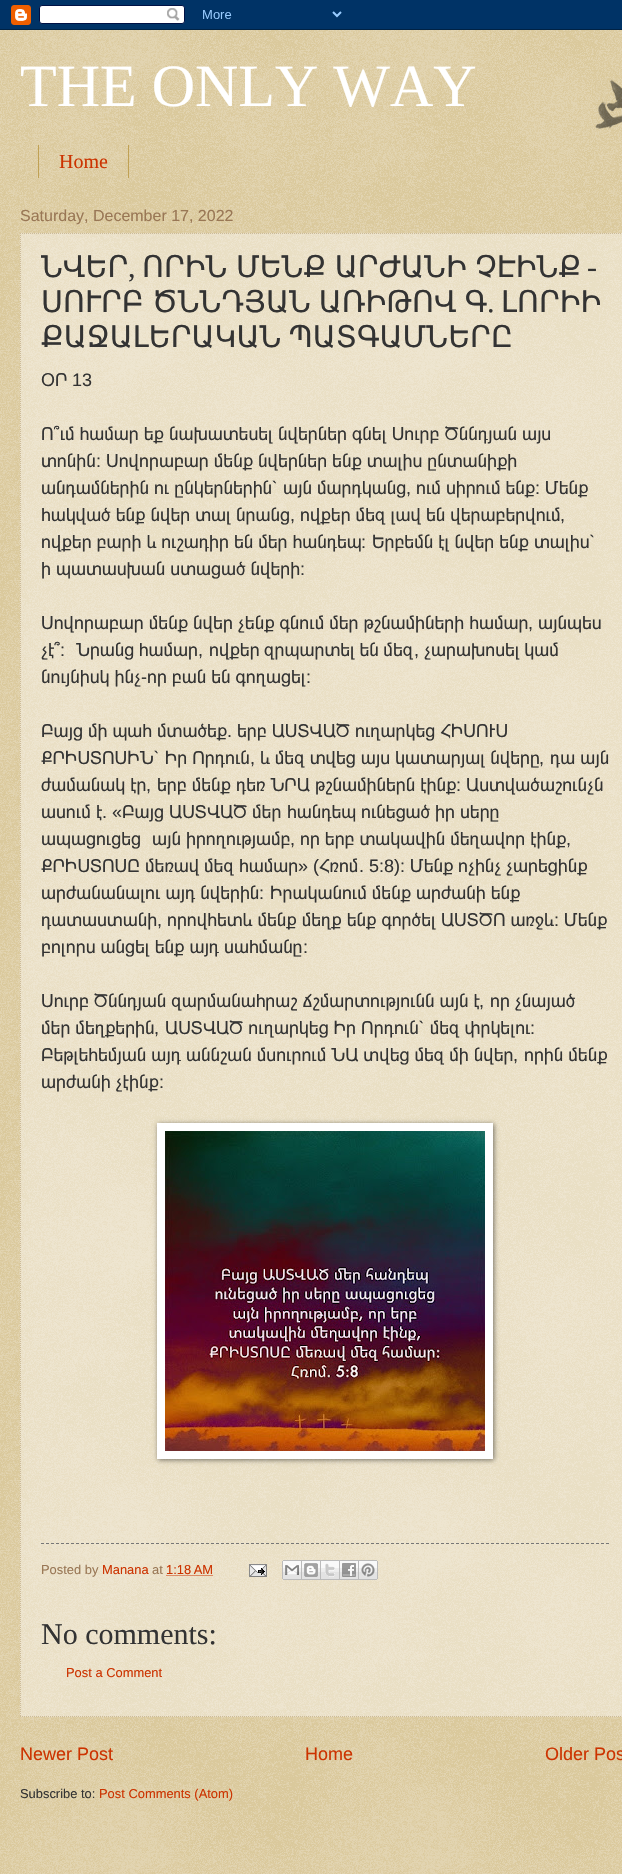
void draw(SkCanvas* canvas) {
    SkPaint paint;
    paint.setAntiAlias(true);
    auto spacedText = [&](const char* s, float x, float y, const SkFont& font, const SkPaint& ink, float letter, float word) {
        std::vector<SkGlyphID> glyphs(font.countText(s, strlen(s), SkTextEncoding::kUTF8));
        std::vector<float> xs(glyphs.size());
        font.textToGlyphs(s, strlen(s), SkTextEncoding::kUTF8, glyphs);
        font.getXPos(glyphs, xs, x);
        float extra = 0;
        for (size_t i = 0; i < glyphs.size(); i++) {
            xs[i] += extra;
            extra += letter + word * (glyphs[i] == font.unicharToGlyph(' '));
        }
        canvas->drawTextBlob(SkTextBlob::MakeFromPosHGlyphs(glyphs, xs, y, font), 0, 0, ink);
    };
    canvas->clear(0xFFC0A154);
    canvas->drawImageRect(SkImages::DeferredFromEncodedData(SkData::MakeFromFileName("img1.png")), SkRect::MakeXYWH(0, 30, 622, 1844), SkSamplingOptions());
    canvas->drawImageRect(SkImages::DeferredFromEncodedData(SkData::MakeFromFileName("img2.png")), SkRect::MakeXYWH(0, 0, 622, 30), SkSamplingOptions());
    SkFont font1(fontMgr->matchFamilyStyle("Liberation Serif", SkFontStyle::Normal()), 60);
    font1.setSubpixel(true);
    paint.setColor(0xFFFFFFFF);
    canvas->drawString("THE ONLY WAY", 20, 106, font1, paint);
    paint.setColor(0xFFC0A154);
    canvas->drawRect(SkRect::MakeXYWH(128, 145, 1, 33), paint);
    canvas->drawRect(SkRect::MakeXYWH(38, 145, 1, 33), paint);
    SkFont font2(fontMgr->matchFamilyStyle("Liberation Serif", SkFontStyle::Normal()), 20);
    font2.setSubpixel(true);
    paint.setColor(0xFFCC3300);
    canvas->drawString("Home", 59, 168, font2, paint);
    SkFont font3(fontMgr->matchFamilyStyle("Liberation Sans", SkFontStyle::Normal()), 16);
    font3.setSubpixel(true);
    paint.setColor(0xFF997755);
    canvas->drawString("Saturday, December 17, 2022", 20, 221, font3, paint);
    paint.setColor(0x66FFFFFF);
    canvas->drawRect(SkRect::MakeXYWH(20, 233, 602, 1484), paint);
    paint.setStyle(SkPaint::kStroke_Style);
    paint.setStrokeWidth(1);
    paint.setColor(0xFFCCBB99);
    paint.setPathEffect(SkDashPathEffect::Make({{1, 1}}, 0));
    canvas->drawPath(SkPathBuilder().moveTo(20, 233.5f).lineTo(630, 233.5f).detach(), paint);
    paint.setPathEffect(nullptr);
    paint.setPathEffect(SkDashPathEffect::Make({{1, 1}}, 0));
    canvas->drawPath(SkPathBuilder().moveTo(20, 1716.5f).lineTo(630, 1716.5f).detach(), paint);
    paint.setPathEffect(nullptr);
    paint.setPathEffect(SkDashPathEffect::Make({{1, 1}}, 0));
    canvas->drawPath(SkPathBuilder().moveTo(20.5f, 233).lineTo(20.5f, 1717).detach(), paint);
    paint.setPathEffect(nullptr);
    SkFont font4(fontMgr->matchFamilyStyle("DejaVu Sans", SkFontStyle::Normal()), 30);
    font4.setSubpixel(true);
    paint.setStyle(SkPaint::kFill_Style);
    paint.setColor(0xFF333333);
    canvas->drawString("ՆՎԵՐ", 41, 277, font4, paint);
    spacedText("ՈՐԻՆ ՄԵՆՔ ԱՐԺԱՆԻ ՉԷԻՆՔ", 142, 277, font4, paint, 0, -1);
    SkFont font5(fontMgr->matchFamilyStyle("Liberation Serif", SkFontStyle::Normal()), 30);
    font5.setSubpixel(true);
    canvas->drawString("-", 587, 277, font5, paint);
    canvas->drawString(",", 128, 277, font5, paint);
    spacedText("ՍՈՒՐԲ ԾՆՆԴՅԱՆ ԱՌԻԹՈՎ Գ", 41, 312, font4, paint, 0, -1.5f);
    canvas->drawString(".", 487, 312, font5, paint);
    canvas->drawString("ԼՈՐԻԻ", 501, 312, font4, paint);
    spacedText("ՔԱՋԱԼԵՐԱԿԱՆ ՊԱՏԳԱՄՆԵՐԸ", 41, 347, font4, paint, 0, -2);
    SkFont font6(fontMgr->matchFamilyStyle("FreeSans", SkFontStyle::Normal()), 18);
    font6.setSubpixel(true);
    canvas->drawString("ՕՐ", 41, 386, font6, paint);
    SkFont font7(fontMgr->matchFamilyStyle("Liberation Sans", SkFontStyle::Normal()), 18);
    font7.setSubpixel(true);
    canvas->drawString("13", 72, 386, font7, paint);
    spacedText("Ո՞ւմ համար եք նախատեսել նվերներ գնել Սուրբ Ծննդյան այս", 41, 440, font6, paint, 0, 0.5f);
    canvas->drawString("տոնին", 41, 467, font6, paint);
    canvas->drawString(":", 96, 467, font7, paint);
    spacedText("Սովորաբար մենք նվերներ ենք տալիս ընտանիքի", 106, 467, font6, paint, 0, 0.5f);
    spacedText("անդամներին ու ընկերներին՝ այն մարդկանց", 41, 494, font6, paint, 0, 0.5f);
    spacedText("ում սիրում ենք", 416, 494, font6, paint, 0, 0.5f);
    canvas->drawString(":", 535, 494, font7, paint);
    canvas->drawString("Մենք", 545, 494, font6, paint);
    canvas->drawString(",", 406, 494, font7, paint);
    spacedText("հակված ենք նվեր տալ նրանց", 41, 521, font6, paint, 0, 0.5f);
    canvas->drawString(",", 290, 521, font7, paint);
    spacedText("ովքեր մեզ լավ են վերաբերվում", 300, 521, font6, paint, 0, 0.5f);
    canvas->drawString(",", 560, 521, font7, paint);
    spacedText("ովքեր բարի և ուշադիր են մեր հանդեպ", 41, 548, font6, paint, 0, 0.5f);
    canvas->drawString(":", 361, 548, font7, paint);
    spacedText("Երբեմն էլ նվեր ենք տալիս՝", 372, 548, font6, paint, 0, 0.5f);
    spacedText("ի պատասխան ստացած նվերի", 41, 575, font6, paint, 0, 0.5f);
    canvas->drawString(":", 300, 575, font7, paint);
    spacedText("Սովորաբար մենք նվեր չենք գնում մեր թշնամիների համար", 41, 629, font6, paint, 0, 0.5f);
    canvas->drawString(",", 528, 629, font7, paint);
    canvas->drawString("այնպես", 538, 629, font6, paint);
    canvas->drawString("չէ՞", 41, 656, font6, paint);
    canvas->drawString(":", 60, 656, font7, paint);
    canvas->drawString("Նրանց համար", 76, 656, font6, paint);
    canvas->drawString("ովքեր զրպարտել են մեզ", 209, 656, font6, paint);
    canvas->drawString("չարախոսել կամ", 424, 656, font6, paint);
    canvas->drawString(",", 198, 656, font7, paint);
    canvas->drawString(",", 414, 656, font7, paint);
    spacedText("նույնիսկ ինչ", 41, 683, font6, paint, 0, 0.5f);
    canvas->drawString("-", 141, 683, font7, paint);
    spacedText("որ բան են գողացել", 147, 683, font6, paint, 0, 0.5f);
    canvas->drawString(":", 306, 683, font7, paint);
    spacedText("Բայց մի պահ մտածեք", 41, 737, font6, paint, 0, 0.5f);
    canvas->drawString(".", 227, 737, font7, paint);
    spacedText("երբ ԱՍՏՎԱԾ ուղարկեց ՀԻՍՈՒՍ", 237, 737, font6, paint, 0, 0.5f);
    spacedText("ՔՐԻՍՏՈՍԻՆ՝ Իր Որդուն", 41, 764, font6, paint, 0, 0.5f);
    canvas->drawString(",", 250, 764, font7, paint);
    spacedText("և մեզ տվեց այս կատարյալ նվերը", 260, 764, font6, paint, 0, 0.5f);
    canvas->drawString(",", 539, 764, font7, paint);
    spacedText("դա այն", 550, 764, font6, paint, 0, 0.5f);
    spacedText("ժամանակ էր", 41, 791, font6, paint, 0, 0.5f);
    spacedText("երբ մենք դեռ ՆՐԱ թշնամիներն էինք", 157, 791, font6, paint, 0, 0.5f);
    canvas->drawString(":", 456, 791, font7, paint);
    canvas->drawString("Աստվածաշունչն", 466, 791, font6, paint);
    canvas->drawString(",", 146, 791, font7, paint);
    canvas->drawString("ասում", 41, 818, font6, paint);
    canvas->drawString("է", 96, 818, font6, paint);
    canvas->drawString(". «", 102, 818, font7, paint);
    canvas->drawString("Բայց", 122, 818, font6, paint);
    canvas->drawString("ԱՍՏՎԱԾ", 169, 818, font6, paint);
    canvas->drawString("մեր", 252, 818, font6, paint);
    canvas->drawString("հանդեպ", 287, 818, font6, paint);
    canvas->drawString("ունեցած", 361, 818, font6, paint);
    canvas->drawString("իր", 435, 818, font6, paint);
    canvas->drawString("սերը", 460, 818, font6, paint);
    canvas->drawString("ապացուցեց", 41, 845, font6, paint);
    spacedText("այն իրողությամբ", 152, 845, font6, paint, 0, 0.5f);
    canvas->drawString(",", 290, 845, font7, paint);
    spacedText("որ երբ տակավին մեղավոր էինք", 300, 845, font6, paint, 0, 0.5f);
    canvas->drawString(",", 566, 845, font7, paint);
    canvas->drawString("ՔՐԻՍՏՈՍԸ", 41, 872, font6, paint);
    canvas->drawString("մեռավ", 145, 872, font6, paint);
    canvas->drawString("մեզ", 204, 872, font6, paint);
    canvas->drawString("համար", 239, 872, font6, paint);
    canvas->drawString("» (", 298, 872, font7, paint);
    canvas->drawString("Հռոմ", 319, 872, font6, paint);
    canvas->drawString(". 5:8):", 359, 872, font7, paint);
    canvas->drawString("Մենք", 410, 872, font6, paint);
    canvas->drawString("ոչինչ", 458, 872, font6, paint);
    canvas->drawString("չարեցինք", 506, 872, font6, paint);
    spacedText("արժանանալու այդ նվերին", 41, 899, font6, paint, 0, 0.5f);
    canvas->drawString(":", 259, 899, font7, paint);
    spacedText("Իրականում մենք արժանի ենք", 270, 899, font6, paint, 0, 0.5f);
    canvas->drawString("դատաստանի", 41, 926, font6, paint);
    spacedText("որովհետև մենք մեղք ենք գործել ԱՍՏԾՈ առջև", 167, 926, font6, paint, 0, 0.5f);
    canvas->drawString(":", 554, 926, font7, paint);
    canvas->drawString("Մենք", 564, 926, font6, paint);
    canvas->drawString(",", 157, 926, font7, paint);
    spacedText("բոլորս անցել ենք այդ սահմանը", 41, 953, font6, paint, 0, 0.5f);
    canvas->drawString(":", 303, 953, font7, paint);
    spacedText("Սուրբ Ծննդյան զարմանահրաշ ճշմարտությունն այն է", 41, 1007, font6, paint, 0, 0.5f);
    canvas->drawString(",", 479, 1007, font7, paint);
    spacedText("որ չնայած", 490, 1007, font6, paint, 0, 0.5f);
    spacedText("մեր մեղքերին", 41, 1034, font6, paint, 0, 0.5f);
    spacedText("ԱՍՏՎԱԾ ուղարկեց Իր Որդուն՝ մեզ փրկելու", 165, 1034, font6, paint, 0, 0.5f);
    canvas->drawString(":", 530, 1034, font7, paint);
    canvas->drawString(",", 154, 1034, font7, paint);
    spacedText("Բեթլեհեմյան այդ աննշան մսուրում ՆԱ տվեց մեզ մի նվեր", 41, 1061, font6, paint, 0, 0.5f);
    canvas->drawString(",", 513, 1061, font7, paint);
    spacedText("որին մենք", 524, 1061, font6, paint, 0, 0.5f);
    spacedText("արժանի չէինք", 41, 1088, font6, paint, 0, 0.5f);
    canvas->drawString(":", 159, 1088, font7, paint);
    paint.setColor(0x80000000);
    paint.setMaskFilter(SkMaskFilter::MakeBlur(kNormal_SkBlurStyle, 2.5f));
    canvas->drawRect(SkRect::MakeXYWH(158, 1124, 336, 336), paint);
    paint.setMaskFilter(nullptr);
    paint.setColor(0xFFFFFFFF);
    canvas->drawRect(SkRect::MakeXYWH(157, 1123, 336, 336), paint);
    canvas->drawImageRect(SkImages::DeferredFromEncodedData(SkData::MakeFromFileName("img3.png")), SkRect::MakeXYWH(165, 1131, 320, 320), SkSamplingOptions());
    paint.setStyle(SkPaint::kStroke_Style);
    paint.setColor(0xFF777777);
    paint.setPathEffect(SkDashPathEffect::Make({{3, 2}}, 0));
    canvas->drawPath(SkPathBuilder().moveTo(41, 1543.5f).lineTo(609, 1543.5f).detach(), paint);
    paint.setPathEffect(nullptr);
    SkFont font8(fontMgr->matchFamilyStyle("Liberation Sans", SkFontStyle::Normal()), 12.9f);
    font8.setSubpixel(true);
    paint.setStyle(SkPaint::kFill_Style);
    paint.setColor(0xFF997755);
    canvas->drawString("Posted by", 41, 1574, font8, paint);
    paint.setColor(0xFFCC3300);
    canvas->drawString("Manana", 102, 1574, font8, paint);
    paint.setColor(0xFF997755);
    canvas->drawString("at", 152, 1574, font8, paint);
    paint.setColor(0xFFCC3300);
    canvas->drawString("1:18 AM", 166, 1574, font8, paint);
    paint.setStyle(SkPaint::kStroke_Style);
    paint.setPathEffect(SkDashPathEffect::Make({{1, 1}}, 0));
    canvas->drawPath(SkPathBuilder().moveTo(166.5f, 1575.5f).lineTo(213, 1575.5f).detach(), paint);
    paint.setPathEffect(nullptr);
    canvas->drawImageRect(SkImages::DeferredFromEncodedData(SkData::MakeFromFileName("img4.png")), SkRect::MakeXYWH(249, 1564, 18, 13), SkSamplingOptions());
    canvas->drawImageRect(SkImages::DeferredFromEncodedData(SkData::MakeFromFileName("img5.png")), SkRect::MakeXYWH(282, 1560, 20, 20), SkSamplingOptions());
    canvas->drawImageRect(SkImages::DeferredFromEncodedData(SkData::MakeFromFileName("img6.png")), SkRect::MakeXYWH(302, 1560, 19, 20), SkSamplingOptions());
    canvas->drawImageRect(SkImages::DeferredFromEncodedData(SkData::MakeFromFileName("img7.png")), SkRect::MakeXYWH(321, 1560, 19, 20), SkSamplingOptions());
    canvas->drawImageRect(SkImages::DeferredFromEncodedData(SkData::MakeFromFileName("img8.png")), SkRect::MakeXYWH(340, 1560, 19, 20), SkSamplingOptions());
    canvas->drawImageRect(SkImages::DeferredFromEncodedData(SkData::MakeFromFileName("img9.png")), SkRect::MakeXYWH(359, 1560, 19, 20), SkSamplingOptions());
    paint.setStyle(SkPaint::kFill_Style);
    paint.setColor(0xFF333333);
    canvas->drawString("No comments:", 41, 1644, font5, paint);
    paint.setColor(0xFFCC3300);
    canvas->drawString("Post a Comment", 66, 1677, font8, paint);
    canvas->drawString("Newer Post", 20, 1760, font7, paint);
    canvas->drawString("Home", 305, 1760, font7, paint);
    canvas->drawString("Older Pos", 545, 1760, font7, paint);
    paint.setColor(0xFF333333);
    canvas->drawString("Subscribe to:", 20, 1798, font8, paint);
    paint.setColor(0xFFCC3300);
    canvas->drawString("Post Comments (Atom)", 99, 1798, font8, paint);
    canvas->drawImageRect(SkImages::DeferredFromEncodedData(SkData::MakeFromFileName("img10.png")), SkRect::MakeXYWH(595, 79, 27, 50), SkSamplingOptions());
}
